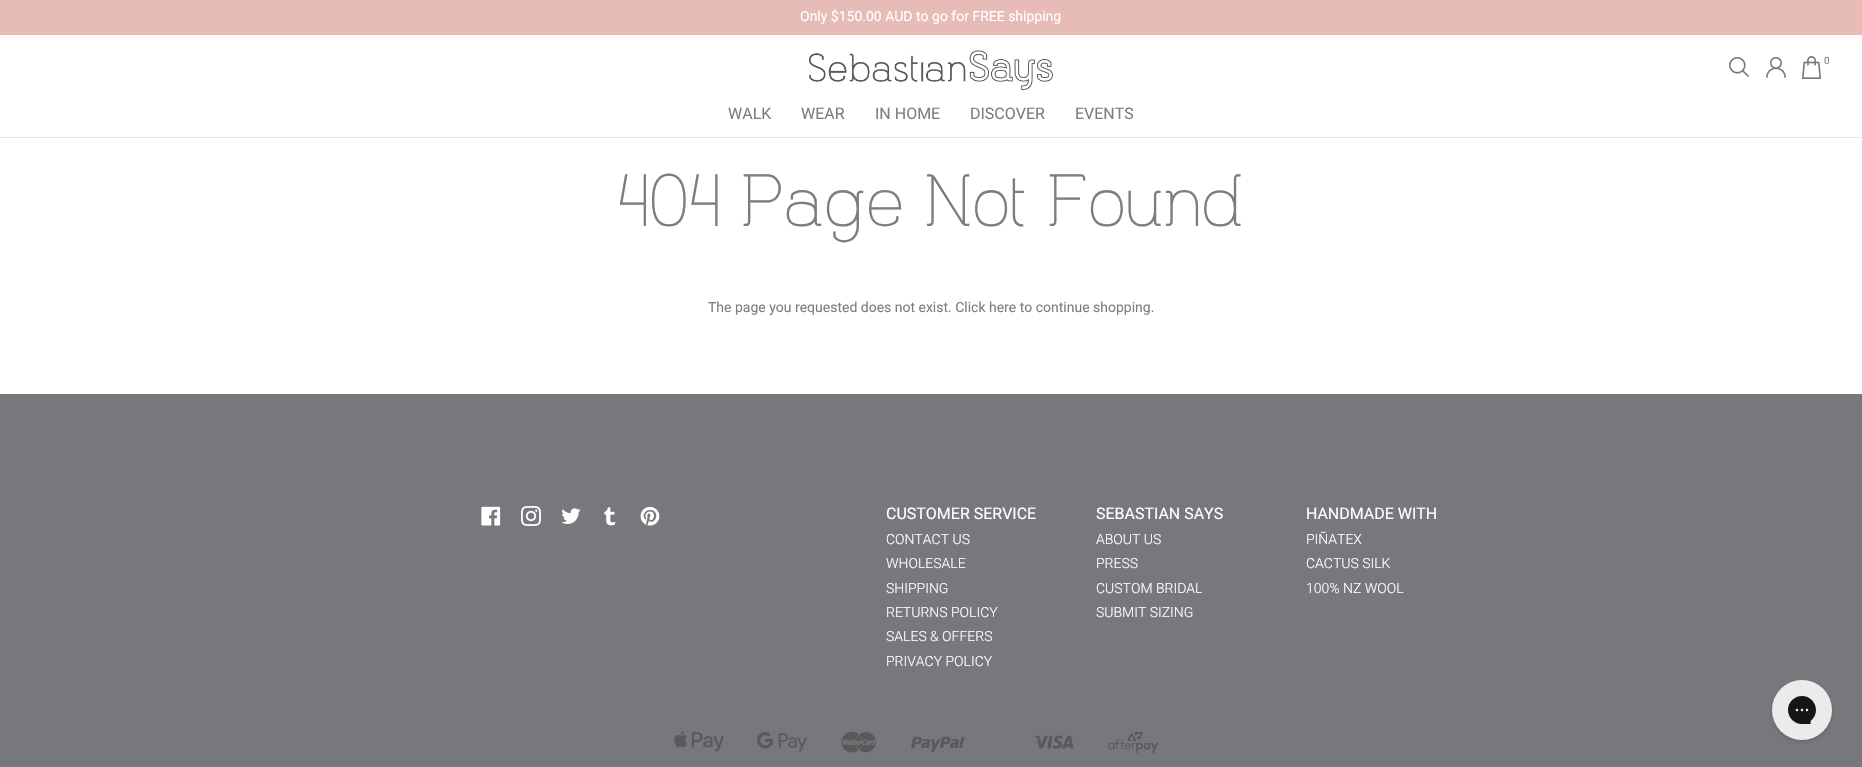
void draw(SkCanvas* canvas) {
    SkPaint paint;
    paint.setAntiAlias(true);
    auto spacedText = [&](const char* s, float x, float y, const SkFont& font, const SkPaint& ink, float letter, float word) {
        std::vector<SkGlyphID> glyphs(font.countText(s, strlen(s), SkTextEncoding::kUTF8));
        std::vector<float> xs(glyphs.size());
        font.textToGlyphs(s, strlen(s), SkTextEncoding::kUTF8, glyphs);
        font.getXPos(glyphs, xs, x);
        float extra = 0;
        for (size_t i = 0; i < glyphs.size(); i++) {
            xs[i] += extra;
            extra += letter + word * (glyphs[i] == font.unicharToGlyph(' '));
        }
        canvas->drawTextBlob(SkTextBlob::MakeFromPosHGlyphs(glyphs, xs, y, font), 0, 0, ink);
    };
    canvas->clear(0xFFFFFFFF);
    paint.setColor(0xFFE7BCB6);
    canvas->drawRect(SkRect::MakeXYWH(0, 0, 1862, 35), paint);
    SkFont font1(fontMgr->matchFamilyStyle("Roboto", SkFontStyle::Normal()), 14);
    font1.setSubpixel(true);
    paint.setColor(0xFFFFFFFF);
    canvas->drawString("Only $150.00 AUD to go for FREE shipping", 800, 21, font1, paint);
    canvas->drawImageRect(SkImages::DeferredFromEncodedData(SkData::MakeFromFileName("img1.png")), SkRect::MakeXYWH(1729, 57, 20, 20), SkSamplingOptions());
    canvas->drawImageRect(SkImages::DeferredFromEncodedData(SkData::MakeFromFileName("img2.png")), SkRect::MakeXYWH(1766, 57, 20, 21), SkSamplingOptions());
    canvas->drawImageRect(SkImages::DeferredFromEncodedData(SkData::MakeFromFileName("img3.png")), SkRect::MakeXYWH(1802, 56, 19, 23), SkSamplingOptions());
    SkFont font2(fontMgr->matchFamilyStyle("Roboto", SkFontStyle::Normal()), 10);
    font2.setSubpixel(true);
    paint.setColor(0xFF7D7D7D);
    canvas->drawString("0", 1824, 64, font2, paint);
    canvas->drawImageRect(SkImages::DeferredFromEncodedData(SkData::MakeFromFileName("img4.png")), SkRect::MakeXYWH(809, 50, 244, 40), SkSamplingOptions());
    SkFont font3(fontMgr->matchFamilyStyle("Roboto", SkFontStyle::Normal()), 16);
    font3.setSubpixel(true);
    canvas->drawString("WALK", 728, 119, font3, paint);
    canvas->drawString("WEAR", 801, 119, font3, paint);
    canvas->drawString("IN HOME", 875, 119, font3, paint);
    canvas->drawString("DISCOVER", 970, 119, font3, paint);
    canvas->drawString("EVENTS", 1075, 119, font3, paint);
    paint.setColor(0xFFE7E7E7);
    canvas->drawRect(SkRect::MakeXYWH(0, 137, 1862, 1), paint);
    SkFont font4(fontMgr->matchFamilyStyle("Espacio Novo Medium", SkFontStyle(500, SkFontStyle::kNormal_Width, SkFontStyle::kUpright_Slant)), 74);
    font4.setSubpixel(true);
    paint.setColor(0xFF7D7D7D);
    spacedText("404 Page Not Found", 618, 226, font4, paint, 2, 0);
    canvas->drawString("The page you requested does not exist. Click here to continue shopping.", 708, 312, font1, paint);
    paint.setColor(0xFF77787B);
    canvas->drawRect(SkRect::MakeXYWH(0, 394, 1862, 373), paint);
    canvas->drawImageRect(SkImages::DeferredFromEncodedData(SkData::MakeFromFileName("img5.png")), SkRect::MakeXYWH(481, 506, 20, 20), SkSamplingOptions());
    canvas->drawImageRect(SkImages::DeferredFromEncodedData(SkData::MakeFromFileName("img6.png")), SkRect::MakeXYWH(521, 506, 20, 20), SkSamplingOptions());
    canvas->drawImageRect(SkImages::DeferredFromEncodedData(SkData::MakeFromFileName("img7.png")), SkRect::MakeXYWH(561, 508, 20, 16), SkSamplingOptions());
    canvas->drawImageRect(SkImages::DeferredFromEncodedData(SkData::MakeFromFileName("img8.png")), SkRect::MakeXYWH(604, 507, 12, 19), SkSamplingOptions());
    canvas->drawImageRect(SkImages::DeferredFromEncodedData(SkData::MakeFromFileName("img9.png")), SkRect::MakeXYWH(640, 506, 20, 20), SkSamplingOptions());
    paint.setColor(0xFFFFFFFF);
    canvas->drawString("CUSTOMER SERVICE", 886, 519, font3, paint);
    SkFont font5(fontMgr->matchFamilyStyle("Roboto", SkFontStyle(300, SkFontStyle::kNormal_Width, SkFontStyle::kUpright_Slant)), 14);
    font5.setSubpixel(true);
    canvas->drawString("CONTACT US", 886, 544, font5, paint);
    canvas->drawString("WHOLESALE", 886, 568, font5, paint);
    canvas->drawString("SHIPPING", 886, 593, font5, paint);
    canvas->drawString("RETURNS POLICY", 886, 617, font5, paint);
    canvas->drawString("SALES & OFFERS", 886, 641, font5, paint);
    canvas->drawString("PRIVACY POLICY", 886, 666, font5, paint);
    canvas->drawString("SEBASTIAN SAYS", 1096, 519, font3, paint);
    canvas->drawString("ABOUT US", 1096, 544, font5, paint);
    canvas->drawString("PRESS", 1096, 568, font5, paint);
    canvas->drawString("CUSTOM BRIDAL", 1096, 593, font5, paint);
    canvas->drawString("SUBMIT SIZING", 1096, 617, font5, paint);
    canvas->drawString("HANDMADE WITH", 1306, 519, font3, paint);
    canvas->drawString("PIÑATEX", 1306, 544, font5, paint);
    canvas->drawString("CACTUS SILK", 1306, 568, font5, paint);
    canvas->drawString("100% NZ WOOL", 1306, 593, font5, paint);
    canvas->drawImageRect(SkImages::DeferredFromEncodedData(SkData::MakeFromFileName("img10.png")), SkRect::MakeXYWH(674, 731, 50, 21), SkSamplingOptions());
    canvas->drawImageRect(SkImages::DeferredFromEncodedData(SkData::MakeFromFileName("img11.png")), SkRect::MakeXYWH(757, 732, 50, 20), SkSamplingOptions());
    canvas->drawImageRect(SkImages::DeferredFromEncodedData(SkData::MakeFromFileName("img12.png")), SkRect::MakeXYWH(841, 731, 35, 22), SkSamplingOptions());
    canvas->drawImageRect(SkImages::DeferredFromEncodedData(SkData::MakeFromFileName("img13.png")), SkRect::MakeXYWH(911, 736, 54, 16), SkSamplingOptions());
    canvas->drawImageRect(SkImages::DeferredFromEncodedData(SkData::MakeFromFileName("img14.png")), SkRect::MakeXYWH(1033, 735, 41, 14), SkSamplingOptions());
    canvas->drawImageRect(SkImages::DeferredFromEncodedData(SkData::MakeFromFileName("img15.png")), SkRect::MakeXYWH(1108, 732, 50, 21), SkSamplingOptions());
    canvas->drawImageRect(SkImages::DeferredFromEncodedData(SkData::MakeFromFileName("img16.png")), SkRect::MakeXYWH(1770, 680, 64, 64), SkSamplingOptions());
}
